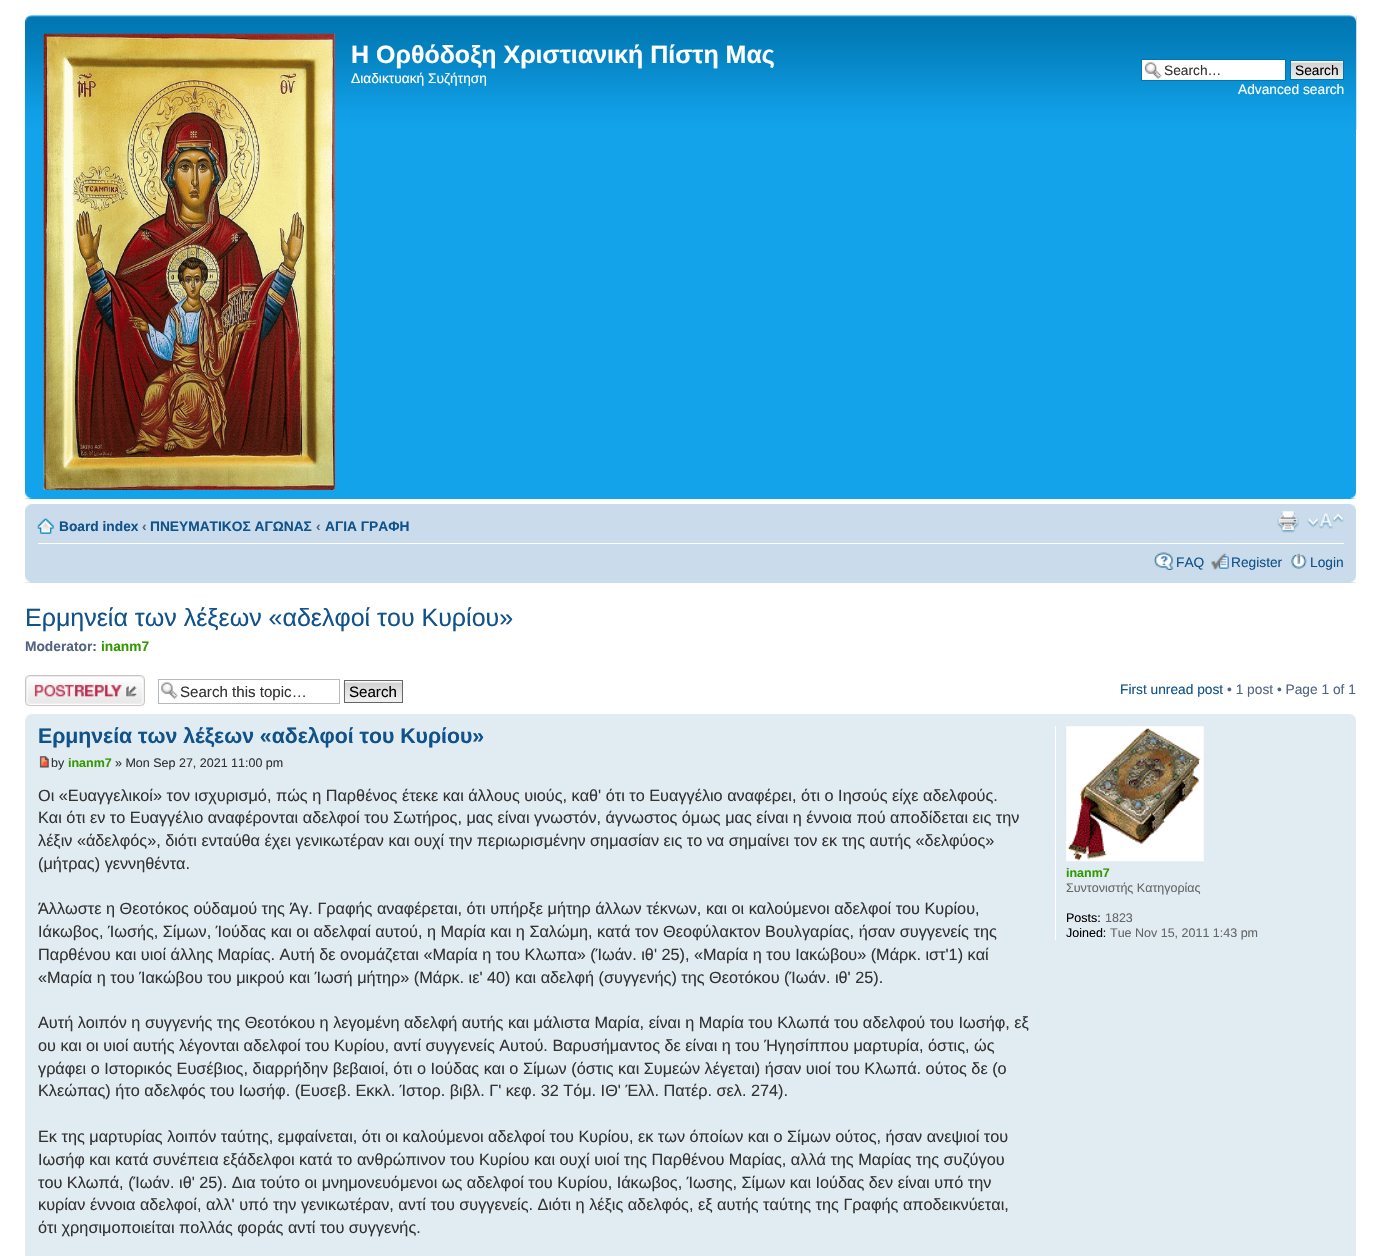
void draw(SkCanvas* canvas) {
    SkPaint paint;
    paint.setAntiAlias(true);
    canvas->clear(0xFFFFFFFF);
    paint.setColor(0xFF12A3EB);
    canvas->drawRect(SkRect::MakeXYWH(25, 130, 1331, 369), paint);
    canvas->drawImageRect(SkImages::DeferredFromEncodedData(SkData::MakeFromFileName("img1.png")), SkRect::MakeXYWH(25, 15, 1332, 115), SkSamplingOptions());
    canvas->drawImageRect(SkImages::DeferredFromEncodedData(SkData::MakeFromFileName("img2.png")), SkRect::MakeXYWH(25, 15, 7, 7), SkSamplingOptions());
    canvas->drawImageRect(SkImages::DeferredFromEncodedData(SkData::MakeFromFileName("img3.png")), SkRect::MakeXYWH(1349, 15, 8, 7), SkSamplingOptions());
    canvas->drawImageRect(SkImages::DeferredFromEncodedData(SkData::MakeFromFileName("img4.png")), SkRect::MakeXYWH(43, 33, 292, 457), SkSamplingOptions());
    SkFont font1(fontMgr->matchFamilyStyle("Liberation Sans", SkFontStyle::Bold()), 25);
    font1.setSubpixel(true);
    paint.setColor(0xFFFFFFFF);
    canvas->drawString("Η Ορθόδοξη Χριστιανική Πίστη Μας", 351, 63, font1, paint);
    SkFont font2(fontMgr->matchFamilyStyle("Liberation Sans", SkFontStyle::Normal()), 13.75f);
    font2.setSubpixel(true);
    canvas->drawString("Διαδικτυακή Συζήτηση", 351, 83, font2, paint);
    canvas->drawRect(SkRect::MakeXYWH(1142, 60, 143, 20), paint);
    canvas->drawImageRect(SkImages::DeferredFromEncodedData(SkData::MakeFromFileName("img5.png")), SkRect::MakeXYWH(1144, 62, 18, 17), SkSamplingOptions());
    paint.setStyle(SkPaint::kStroke_Style);
    paint.setStrokeWidth(1);
    paint.setColor(0xFF0075B0);
    canvas->drawRect(SkRect::MakeXYWH(1141.5f, 59.5f, 144, 21), paint);
    paint.setStyle(SkPaint::kFill_Style);
    paint.setColor(0xFF333333);
    canvas->drawString("Search…", 1164, 75, font2, paint);
    paint.setColor(0xFFFAFAFA);
    canvas->drawRect(SkRect::MakeXYWH(1291, 61, 52, 1), paint);
    canvas->drawImageRect(SkImages::DeferredFromEncodedData(SkData::MakeFromFileName("img6.png")), SkRect::MakeXYWH(1291, 62, 52, 17), SkSamplingOptions());
    paint.setStyle(SkPaint::kStroke_Style);
    paint.setColor(0xFF0075B0);
    canvas->drawRect(SkRect::MakeXYWH(1290.5f, 60.5f, 53, 19), paint);
    paint.setStyle(SkPaint::kFill_Style);
    paint.setColor(0xFF000000);
    canvas->drawString("Search", 1295, 75, font2, paint);
    paint.setColor(0xFFFFFFFF);
    canvas->drawString("Advanced search", 1238, 94, font2, paint);
    canvas->drawImageRect(SkImages::DeferredFromEncodedData(SkData::MakeFromFileName("img7.png")), SkRect::MakeXYWH(25, 492, 7, 7), SkSamplingOptions());
    canvas->drawImageRect(SkImages::DeferredFromEncodedData(SkData::MakeFromFileName("img8.png")), SkRect::MakeXYWH(1350, 492, 6, 7), SkSamplingOptions());
    paint.setColor(0xFFCADCEB);
    canvas->drawRect(SkRect::MakeXYWH(25, 504, 1331, 79), paint);
    canvas->drawImageRect(SkImages::DeferredFromEncodedData(SkData::MakeFromFileName("img9.png")), SkRect::MakeXYWH(25, 504, 7, 6), SkSamplingOptions());
    canvas->drawImageRect(SkImages::DeferredFromEncodedData(SkData::MakeFromFileName("img10.png")), SkRect::MakeXYWH(1350, 504, 6, 6), SkSamplingOptions());
    paint.setColor(0xFFFFFFFF);
    canvas->drawRect(SkRect::MakeXYWH(38, 543, 1306, 1), paint);
    canvas->drawImageRect(SkImages::DeferredFromEncodedData(SkData::MakeFromFileName("img11.png")), SkRect::MakeXYWH(37, 518, 17, 16), SkSamplingOptions());
    SkFont font3(fontMgr->matchFamilyStyle("Liberation Sans", SkFontStyle::Bold()), 13.75f);
    font3.setSubpixel(true);
    paint.setColor(0xFF105289);
    canvas->drawString("Board index", 59, 531, font3, paint);
    paint.setColor(0xFF536482);
    canvas->drawString("‹", 142, 531, font3, paint);
    paint.setColor(0xFF105289);
    canvas->drawString("ΠΝΕΥΜΑΤΙΚΟΣ ΑΓΩΝΑΣ", 150, 531, font3, paint);
    paint.setColor(0xFF536482);
    canvas->drawString("‹", 316, 531, font3, paint);
    paint.setColor(0xFF105289);
    canvas->drawString("ΑΓΙΑ ΓΡΑΦΗ", 325, 531, font3, paint);
    canvas->drawImageRect(SkImages::DeferredFromEncodedData(SkData::MakeFromFileName("img12.png")), SkRect::MakeXYWH(1277, 511, 22, 22), SkSamplingOptions());
    canvas->drawImageRect(SkImages::DeferredFromEncodedData(SkData::MakeFromFileName("img13.png")), SkRect::MakeXYWH(1307, 513, 37, 16), SkSamplingOptions());
    canvas->drawImageRect(SkImages::DeferredFromEncodedData(SkData::MakeFromFileName("img14.png")), SkRect::MakeXYWH(1154, 552, 20, 18), SkSamplingOptions());
    canvas->drawString("FAQ", 1176, 567, font2, paint);
    canvas->drawImageRect(SkImages::DeferredFromEncodedData(SkData::MakeFromFileName("img15.png")), SkRect::MakeXYWH(1211, 553, 18, 17), SkSamplingOptions());
    canvas->drawString("Register", 1231, 567, font2, paint);
    canvas->drawImageRect(SkImages::DeferredFromEncodedData(SkData::MakeFromFileName("img16.png")), SkRect::MakeXYWH(1291, 553, 16, 16), SkSamplingOptions());
    canvas->drawString("Login", 1310, 567, font2, paint);
    canvas->drawImageRect(SkImages::DeferredFromEncodedData(SkData::MakeFromFileName("img17.png")), SkRect::MakeXYWH(25, 576, 6, 7), SkSamplingOptions());
    canvas->drawImageRect(SkImages::DeferredFromEncodedData(SkData::MakeFromFileName("img18.png")), SkRect::MakeXYWH(1350, 576, 6, 7), SkSamplingOptions());
    SkFont font4(fontMgr->matchFamilyStyle("Liberation Sans", SkFontStyle::Normal()), 25);
    font4.setSubpixel(true);
    canvas->drawString("Ερμηνεία των λέξεων «αδελφοί του Κυρίου»", 25, 626, font4, paint);
    paint.setColor(0xFF536482);
    canvas->drawString("Moderator:", 25, 651, font3, paint);
    paint.setColor(0xFF339900);
    canvas->drawString("inanm7", 101, 651, font3, paint);
    canvas->drawImageRect(SkImages::DeferredFromEncodedData(SkData::MakeFromFileName("img19.png")), SkRect::MakeXYWH(25, 675, 120, 32), SkSamplingOptions());
    canvas->drawImageRect(SkImages::DeferredFromEncodedData(SkData::MakeFromFileName("img20.png")), SkRect::MakeXYWH(161, 682, 17, 17), SkSamplingOptions());
    paint.setStyle(SkPaint::kStroke_Style);
    paint.setColor(0xFFB4BAC0);
    canvas->drawRect(SkRect::MakeXYWH(158.5f, 679.5f, 181, 24), paint);
    SkFont font5(fontMgr->matchFamilyStyle("Liberation Sans", SkFontStyle::Normal()), 15.1f);
    font5.setSubpixel(true);
    paint.setStyle(SkPaint::kFill_Style);
    paint.setColor(0xFF333333);
    canvas->drawString("Search this topic…", 180, 697, font5, paint);
    paint.setColor(0xFFFAFAFA);
    canvas->drawRect(SkRect::MakeXYWH(345, 681, 57, 1), paint);
    canvas->drawImageRect(SkImages::DeferredFromEncodedData(SkData::MakeFromFileName("img21.png")), SkRect::MakeXYWH(343, 682, 59, 21), SkSamplingOptions());
    paint.setStyle(SkPaint::kStroke_Style);
    paint.setColor(0xFF666666);
    canvas->drawRect(SkRect::MakeXYWH(344.5f, 680.5f, 58, 22), paint);
    paint.setStyle(SkPaint::kFill_Style);
    paint.setColor(0xFF000000);
    canvas->drawString("Search", 349, 697, font5, paint);
    paint.setColor(0xFF105289);
    canvas->drawString("First unread post", 1120, 694, font2, paint);
    paint.setColor(0xFF536482);
    canvas->drawString("• 1 post • Page 1 of 1", 1227, 694, font2, paint);
    paint.setColor(0xFFE1EBF2);
    canvas->drawRect(SkRect::MakeXYWH(25, 714, 1331, 542), paint);
    canvas->drawImageRect(SkImages::DeferredFromEncodedData(SkData::MakeFromFileName("img22.png")), SkRect::MakeXYWH(25, 714, 6, 6), SkSamplingOptions());
    canvas->drawImageRect(SkImages::DeferredFromEncodedData(SkData::MakeFromFileName("img23.png")), SkRect::MakeXYWH(1350, 714, 6, 6), SkSamplingOptions());
    SkFont font6(fontMgr->matchFamilyStyle("Liberation Sans", SkFontStyle::Bold()), 21.25f);
    font6.setSubpixel(true);
    paint.setColor(0xFF105289);
    canvas->drawString("Ερμηνεία των λέξεων «αδελφοί του Κυρίου»", 38, 743, font6, paint);
    canvas->drawImageRect(SkImages::DeferredFromEncodedData(SkData::MakeFromFileName("img24.png")), SkRect::MakeXYWH(39, 756, 10, 12), SkSamplingOptions());
    SkFont font7(fontMgr->matchFamilyStyle("Liberation Sans", SkFontStyle::Normal()), 12.5f);
    font7.setSubpixel(true);
    paint.setColor(0xFF333333);
    canvas->drawString("by", 51, 767, font7, paint);
    SkFont font8(fontMgr->matchFamilyStyle("Liberation Sans", SkFontStyle::Bold()), 12.5f);
    font8.setSubpixel(true);
    paint.setColor(0xFF339900);
    canvas->drawString("inanm7", 68, 767, font8, paint);
    paint.setColor(0xFF333333);
    canvas->drawString("» Mon Sep 27, 2021 11:00 pm", 115, 767, font7, paint);
    SkFont font9(fontMgr->matchFamilyStyle("Liberation Sans", SkFontStyle::Normal()), 16.25f);
    font9.setSubpixel(true);
    canvas->drawString("Οι «Ευαγγελικοί» τον ισχυρισμό, πώς η Παρθένος έτεκε και άλλους υιούς, καθ' ότι το Ευαγγέλιο αναφέρει, ότι ο Ιησούς είχε αδελφούς.", 38, 801, font9, paint);
    canvas->drawString("Και ότι εν το Ευαγγέλιο αναφέρονται αδελφοί του Σωτήρος, μας είναι γνωστόν, άγνωστος όμως μας είναι η έννοια πού αποδίδεται εις την", 38, 823, font9, paint);
    canvas->drawString("λέξιν «άδελφός», διότι ενταύθα έχει γενικωτέραν και ουχί την περιωρισμένην σημασίαν εις το να σημαίνει τον εκ της αυτής «δελφύος»", 38, 846, font9, paint);
    canvas->drawString("(μήτρας) γεννηθέντα.", 38, 869, font9, paint);
    canvas->drawString("Άλλωστε η Θεοτόκος ούδαμού της Άγ. Γραφής αναφέρεται, ότι υπήρξε μήτηρ άλλων τέκνων, και οι καλούμενοι αδελφοί του Κυρίου,", 38, 914, font9, paint);
    canvas->drawString("Ιάκωβος, Ίωσής, Σίμων, Ίούδας και οι αδελφαί αυτού, η Μαρία και η Σαλώμη, κατά τον Θεοφύλακτον Βουλγαρίας, ήσαν συγγενείς της", 38, 937, font9, paint);
    canvas->drawString("Παρθένου και υιοί άλλης Μαρίας. Αυτή δε ονομάζεται «Μαρία η του Κλωπα» (Ίωάν. ιθ' 25), «Μαρία η του Ιακώβου» (Μάρκ. ιστ'1) καί", 38, 960, font9, paint);
    canvas->drawString("«Μαρία η του Ίακώβου του μικρού και Ίωσή μήτηρ» (Μάρκ. ιε' 40) και αδελφή (συγγενής) της Θεοτόκου (Ίωάν. ιθ' 25).", 38, 983, font9, paint);
    canvas->drawString("Αυτή λοιπόν η συγγενής της Θεοτόκου η λεγομένη αδελφή αυτής και μάλιστα Μαρία, είναι η Μαρία του Κλωπά του αδελφού του Ιωσήφ, εξ", 38, 1028, font9, paint);
    canvas->drawString("ου και οι υιοί αυτής λέγονται αδελφοί του Κυρίου, αντί συγγενείς Αυτού. Βαρυσήμαντος δε είναι η του Ήγησίππου μαρτυρία, όστις, ώς", 38, 1051, font9, paint);
    canvas->drawString("γράφει ο Ιστορικός Ευσέβιος, διαρρήδην βεβαιοί, ότι ο Ιούδας και ο Σίμων (όστις και Συμεών λέγεται) ήσαν υιοί του Κλωπά. ούτος δε (ο", 38, 1074, font9, paint);
    canvas->drawString("Κλεώπας) ήτο αδελφός του Ιωσήφ. (Ευσεβ. Εκκλ. Ίστορ. βιβλ. Γ' κεφ. 32 Τόμ. ΙΘ' Έλλ. Πατέρ. σελ. 274).", 38, 1096, font9, paint);
    canvas->drawString("Εκ της μαρτυρίας λοιπόν ταύτης, εμφαίνεται, ότι οι καλούμενοι αδελφοί του Κυρίου, εκ των όποίων και ο Σίμων ούτος, ήσαν ανεψιοί του", 38, 1142, font9, paint);
    canvas->drawString("Ιωσήφ και κατά συνέπεια εξάδελφοι κατά το ανθρώπινον του Κυρίου και ουχί υιοί της Παρθένου Μαρίας, αλλά της Μαρίας της συζύγου", 38, 1165, font9, paint);
    canvas->drawString("του Κλωπά, (Ίωάν. ιθ' 25). Δια τούτο οι μνημονευόμενοι ως αδελφοί του Κυρίου, Ιάκωβος, Ίωσης, Σίμων και Ιούδας δεν είναι υπό την", 38, 1188, font9, paint);
    canvas->drawString("κυρίαν έννοια αδελφοί, αλλ' υπό την γενικωτέραν, αντί του συγγενείς. Διότι η λέξις αδελφός, εξ αυτής ταύτης της Γραφής αποδεικνύεται,", 38, 1210, font9, paint);
    canvas->drawString("ότι χρησιμοποιείται πολλάς φοράς αντί του συγγενής.", 38, 1233, font9, paint);
    paint.setColor(0xFFFFFFFF);
    canvas->drawRect(SkRect::MakeXYWH(1055, 726, 1, 214), paint);
    canvas->drawImageRect(SkImages::DeferredFromEncodedData(SkData::MakeFromFileName("img25.png")), SkRect::MakeXYWH(1066, 726, 138, 136), SkSamplingOptions());
    paint.setColor(0xFF339900);
    canvas->drawString("inanm7", 1066, 877, font8, paint);
    paint.setColor(0xFF666666);
    canvas->drawString("Συντονιστής Κατηγορίας", 1066, 892, font7, paint);
    paint.setColor(0xFF000000);
    canvas->drawString("Posts:", 1066, 922, font7, paint);
    paint.setColor(0xFF666666);
    canvas->drawString("1823", 1105, 922, font7, paint);
    paint.setColor(0xFF000000);
    canvas->drawString("Joined:", 1066, 937, font7, paint);
    paint.setColor(0xFF666666);
    canvas->drawString("Tue Nov 15, 2011 1:43 pm", 1110, 937, font7, paint);
}
